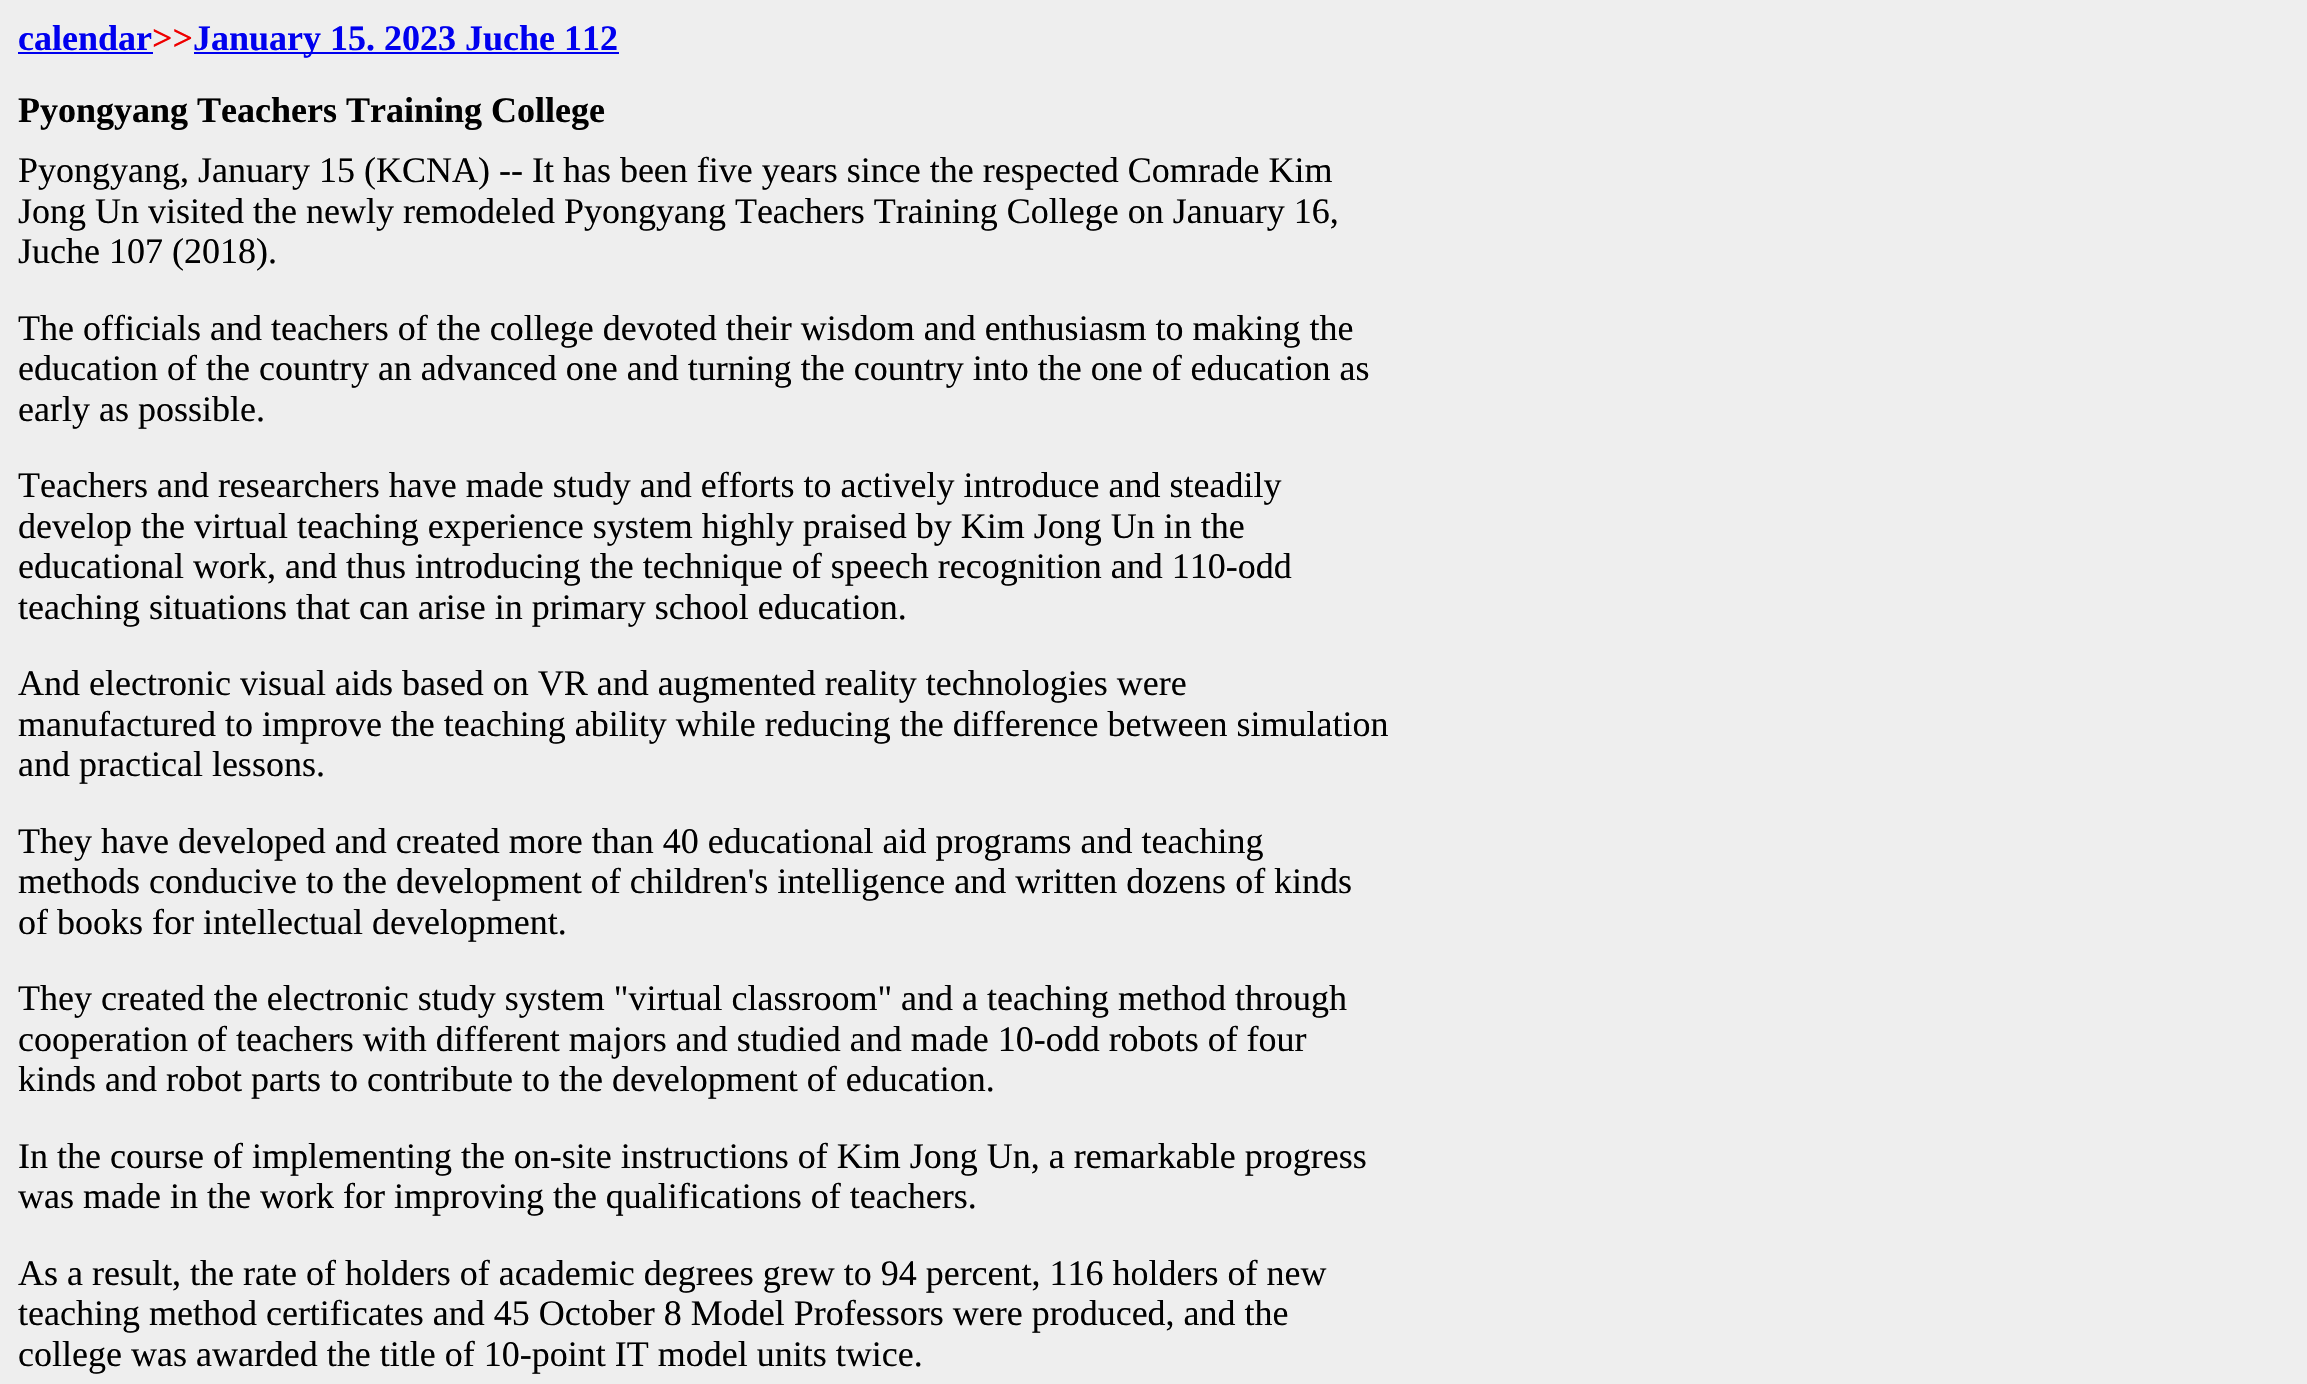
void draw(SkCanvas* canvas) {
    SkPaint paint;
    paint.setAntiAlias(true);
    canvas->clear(0xFFEEEEEE);
    SkFont font1(fontMgr->matchFamilyStyle("Liberation Serif", SkFontStyle::Bold()), 36);
    font1.setSubpixel(true);
    paint.setColor(0xFF0000EE);
    canvas->drawString("calendar", 18, 50, font1, paint);
    paint.setColor(0xFFEE0000);
    canvas->drawString(">>", 152, 50, font1, paint);
    paint.setColor(0xFF0000EE);
    canvas->drawRect(SkRect::MakeXYWH(18, 52, 135, 2), paint);
    canvas->drawRect(SkRect::MakeXYWH(194, 52, 425, 2), paint);
    canvas->drawString("January 15. 2023 Juche 112", 193, 50, font1, paint);
    paint.setColor(0xFF000000);
    canvas->drawString("Pyongyang Teachers Training College", 18, 122, font1, paint);
    SkFont font2(fontMgr->matchFamilyStyle("Liberation Serif", SkFontStyle::Normal()), 36);
    font2.setSubpixel(true);
    canvas->drawString("Pyongyang, January 15 (KCNA) -- It has been five years since the respected Comrade Kim", 18, 182, font2, paint);
    canvas->drawString("Jong Un visited the newly remodeled Pyongyang Teachers Training College on January 16,", 18, 223, font2, paint);
    canvas->drawString("Juche 107 (2018).", 18, 263, font2, paint);
    canvas->drawString("The officials and teachers of the college devoted their wisdom and enthusiasm to making the", 18, 340, font2, paint);
    canvas->drawString("education of the country an advanced one and turning the country into the one of education as", 18, 380, font2, paint);
    canvas->drawString("early as possible.", 18, 421, font2, paint);
    canvas->drawString("Teachers and researchers have made study and efforts to actively introduce and steadily", 18, 497, font2, paint);
    canvas->drawString("develop the virtual teaching experience system highly praised by Kim Jong Un in the", 18, 538, font2, paint);
    canvas->drawString("educational work, and thus introducing the technique of speech recognition and 110-odd", 18, 578, font2, paint);
    canvas->drawString("teaching situations that can arise in primary school education.", 18, 619, font2, paint);
    canvas->drawString("And electronic visual aids based on VR and augmented reality technologies were", 18, 695, font2, paint);
    canvas->drawString("manufactured to improve the teaching ability while reducing the difference between simulation", 18, 736, font2, paint);
    canvas->drawString("and practical lessons.", 18, 776, font2, paint);
    canvas->drawString("They have developed and created more than 40 educational aid programs and teaching", 18, 853, font2, paint);
    canvas->drawString("methods conducive to the development of children's intelligence and written dozens of kinds", 18, 893, font2, paint);
    canvas->drawString("of books for intellectual development.", 18, 934, font2, paint);
    canvas->drawString("They created the electronic study system \"virtual classroom\" and a teaching method through", 18, 1010, font2, paint);
    canvas->drawString("cooperation of teachers with different majors and studied and made 10-odd robots of four", 18, 1051, font2, paint);
    canvas->drawString("kinds and robot parts to contribute to the development of education.", 18, 1091, font2, paint);
    canvas->drawString("In the course of implementing the on-site instructions of Kim Jong Un, a remarkable progress", 18, 1168, font2, paint);
    canvas->drawString("was made in the work for improving the qualifications of teachers.", 18, 1208, font2, paint);
    canvas->drawString("As a result, the rate of holders of academic degrees grew to 94 percent, 116 holders of new", 18, 1285, font2, paint);
    canvas->drawString("teaching method certificates and 45 October 8 Model Professors were produced, and the", 18, 1325, font2, paint);
    canvas->drawString("college was awarded the title of 10-point IT model units twice.", 18, 1366, font2, paint);
}
